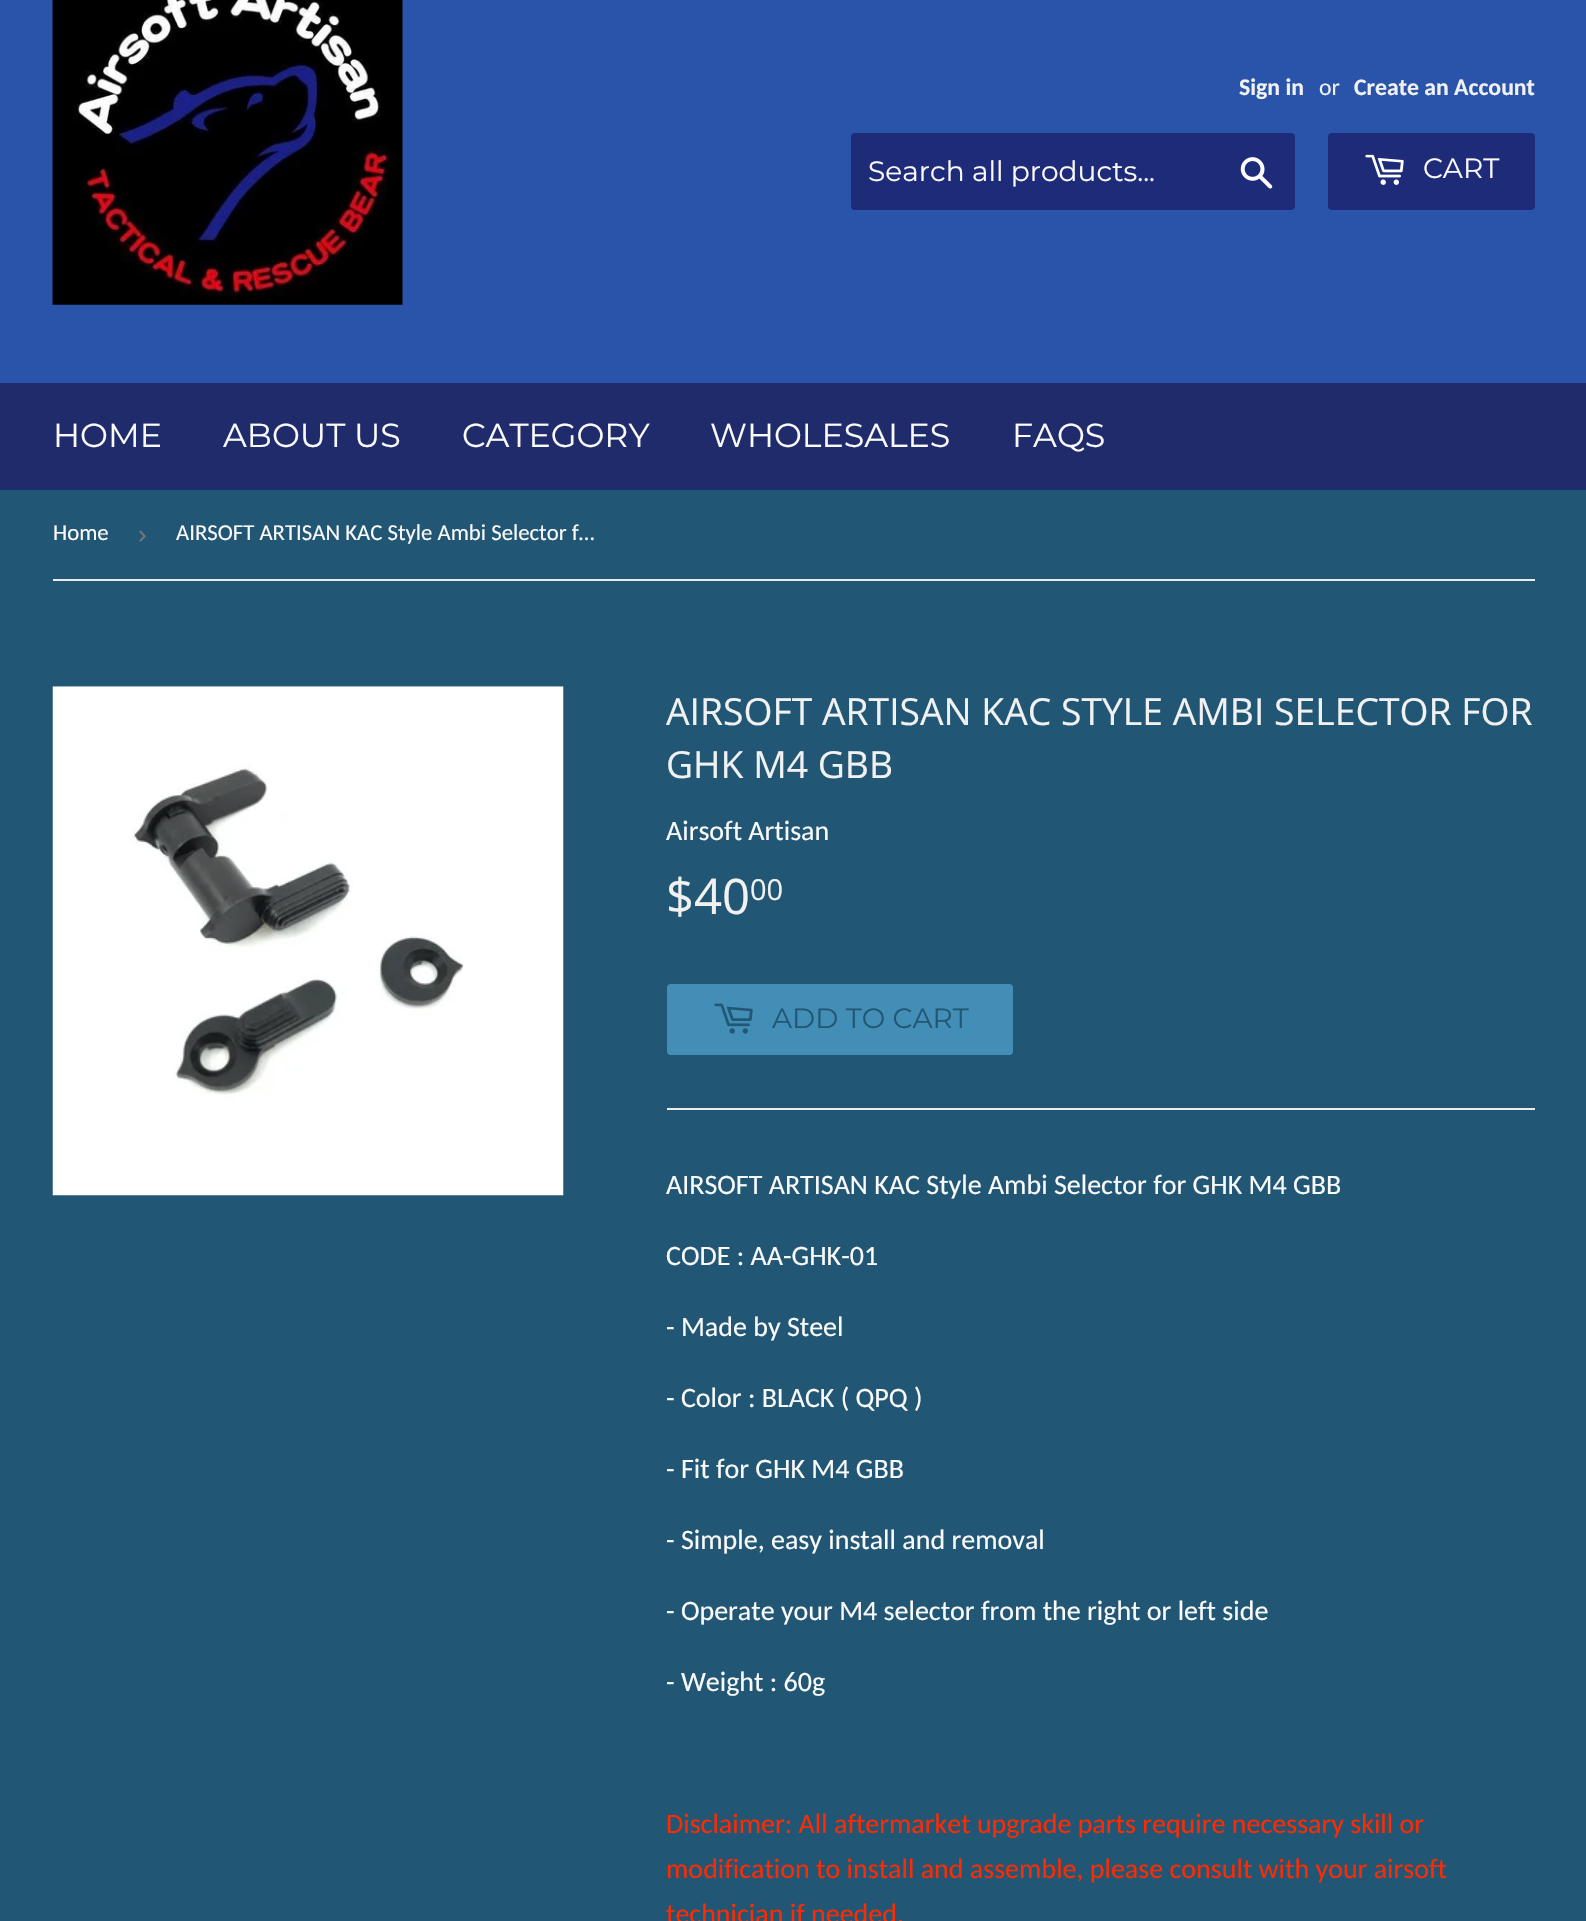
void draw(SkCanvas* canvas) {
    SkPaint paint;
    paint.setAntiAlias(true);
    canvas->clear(0xFF215774);
    paint.setColor(0xFF2A54A9);
    canvas->drawRect(SkRect::MakeXYWH(0, 0, 1586, 383), paint);
    canvas->drawImageRect(SkImages::DeferredFromEncodedData(SkData::MakeFromFileName("img1.png")), SkRect::MakeXYWH(52, 0, 351, 305), SkSamplingOptions());
    SkFont font1(fontMgr->matchFamilyStyle("Carlito", SkFontStyle::Bold()), 23.75f);
    font1.setSubpixel(true);
    paint.setColor(0xFFF1F1F1);
    canvas->drawString("Sign in", 1239, 95, font1, paint);
    SkFont font2(fontMgr->matchFamilyStyle("Carlito", SkFontStyle::Normal()), 23.75f);
    font2.setSubpixel(true);
    canvas->drawString("or", 1319, 95, font2, paint);
    canvas->drawString("Create an Account", 1354, 95, font1, paint);
    paint.setColor(0xFF1D2B79);
    canvas->drawRoundRect(SkRect::MakeXYWH(851, 133, 444, 77), 4, 4, paint);
    SkFont font3(fontMgr->matchFamilyStyle("Montserrat", SkFontStyle(100, SkFontStyle::kNormal_Width, SkFontStyle::kUpright_Slant)), 28);
    font3.setSubpixel(true);
    paint.setColor(0xFFFAFAFA);
    canvas->drawString("Search all products...", 868, 181, font3, paint);
    canvas->drawImageRect(SkImages::DeferredFromEncodedData(SkData::MakeFromFileName("img2.png")), SkRect::MakeXYWH(1240, 157, 33, 32), SkSamplingOptions());
    paint.setColor(0xFF1D2B79);
    canvas->drawRoundRect(SkRect::MakeXYWH(1328, 133, 207, 77), 4, 4, paint);
    canvas->drawImageRect(SkImages::DeferredFromEncodedData(SkData::MakeFromFileName("img3.png")), SkRect::MakeXYWH(1365, 154, 39, 31), SkSamplingOptions());
    paint.setColor(0xFFFAFAFA);
    canvas->drawString("CART", 1423, 178, font3, paint);
    paint.setColor(0xFF1F2B6B);
    canvas->drawRect(SkRect::MakeXYWH(0, 383, 1586, 107), paint);
    SkFont font4(fontMgr->matchFamilyStyle("Montserrat", SkFontStyle(100, SkFontStyle::kNormal_Width, SkFontStyle::kUpright_Slant)), 33.25f);
    font4.setSubpixel(true);
    paint.setColor(0xFFFAFAFA);
    canvas->drawString("HOME", 53, 447, font4, paint);
    canvas->drawString("ABOUT US", 223, 447, font4, paint);
    canvas->drawString("CATEGORY", 462, 447, font4, paint);
    canvas->drawString("WHOLESALES", 710, 447, font4, paint);
    canvas->drawString("FAQS", 1012, 447, font4, paint);
    paint.setColor(0xFFECECEC);
    canvas->drawRect(SkRect::MakeXYWH(53, 579, 1482, 2), paint);
    SkFont font5(fontMgr->matchFamilyStyle("Carlito", SkFontStyle::Normal()), 22.75f);
    font5.setSubpixel(true);
    paint.setColor(0xFFFAFAFA);
    canvas->drawString("Home", 53, 540, font5, paint);
    SkFont font6(fontMgr->matchFamilyStyle("Liberation Sans", SkFontStyle::Normal()), 26);
    font6.setSubpixel(true);
    paint.setColor(0xFF767676);
    canvas->drawString("›", 138, 543, font6, paint);
    paint.setColor(0xFFFAFAFA);
    canvas->drawString("AIRSOFT ARTISAN KAC Style Ambi Selector f…", 176, 540, font5, paint);
    canvas->drawImageRect(SkImages::DeferredFromEncodedData(SkData::MakeFromFileName("img4.png")), SkRect::MakeXYWH(52, 686, 512, 510), SkSamplingOptions());
    SkFont font7(fontMgr->matchFamilyStyle("Open Sans", SkFontStyle::Normal()), 37.3f);
    font7.setSubpixel(true);
    paint.setColor(0xFFF1F1F1);
    canvas->drawString("AIRSOFT ARTISAN KAC STYLE AMBI SELECTOR FOR", 666, 725, font7, paint);
    canvas->drawString("GHK M4 GBB", 666, 778, font7, paint);
    SkFont font8(fontMgr->matchFamilyStyle("Carlito", SkFontStyle::Normal()), 28);
    font8.setSubpixel(true);
    paint.setColor(0xFFFAFAFA);
    canvas->drawString("Airsoft Artisan", 666, 840, font8, paint);
    SkFont font9(fontMgr->matchFamilyStyle("Open Sans", SkFontStyle::Normal()), 49);
    font9.setSubpixel(true);
    paint.setColor(0xFFF1F1F1);
    canvas->drawString("$40", 666, 914, font9, paint);
    SkFont font10(fontMgr->matchFamilyStyle("Open Sans", SkFontStyle::Normal()), 29);
    font10.setSubpixel(true);
    canvas->drawString("00", 750, 900, font10, paint);
    paint.setColor(0xFF428EB7);
    canvas->drawRoundRect(SkRect::MakeXYWH(667, 984, 346, 71), 4, 4, paint);
    canvas->drawImageRect(SkImages::DeferredFromEncodedData(SkData::MakeFromFileName("img5.png")), SkRect::MakeXYWH(714, 1003, 39, 31), SkSamplingOptions());
    paint.setColor(0xFF215774);
    canvas->drawString("ADD TO CART", 772, 1028, font3, paint);
    paint.setColor(0xFFECECEC);
    canvas->drawRect(SkRect::MakeXYWH(667, 1108, 868, 2), paint);
    paint.setColor(0xFFFAFAFA);
    canvas->drawString("AIRSOFT ARTISAN KAC Style Ambi Selector for GHK M4 GBB", 666, 1194, font8, paint);
    canvas->drawString("CODE : AA-GHK-01", 666, 1265, font8, paint);
    canvas->drawString("- Made by Steel", 666, 1336, font8, paint);
    canvas->drawString("- Color : BLACK ( QPQ )", 666, 1407, font8, paint);
    canvas->drawString("- Fit for GHK M4 GBB", 666, 1478, font8, paint);
    canvas->drawString("- Simple, easy install and removal", 666, 1549, font8, paint);
    canvas->drawString("- Operate your M4 selector from the right or left side", 666, 1620, font8, paint);
    canvas->drawString("- Weight : 60g", 666, 1691, font8, paint);
    paint.setColor(0xFFFF2A00);
    canvas->drawString("Disclaimer: All aftermarket upgrade parts require necessary skill or", 666, 1833, font8, paint);
    canvas->drawString("modification to install and assemble, please consult with your airsoft", 666, 1878, font8, paint);
    canvas->drawString("technician if needed.", 666, 1923, font8, paint);
}
